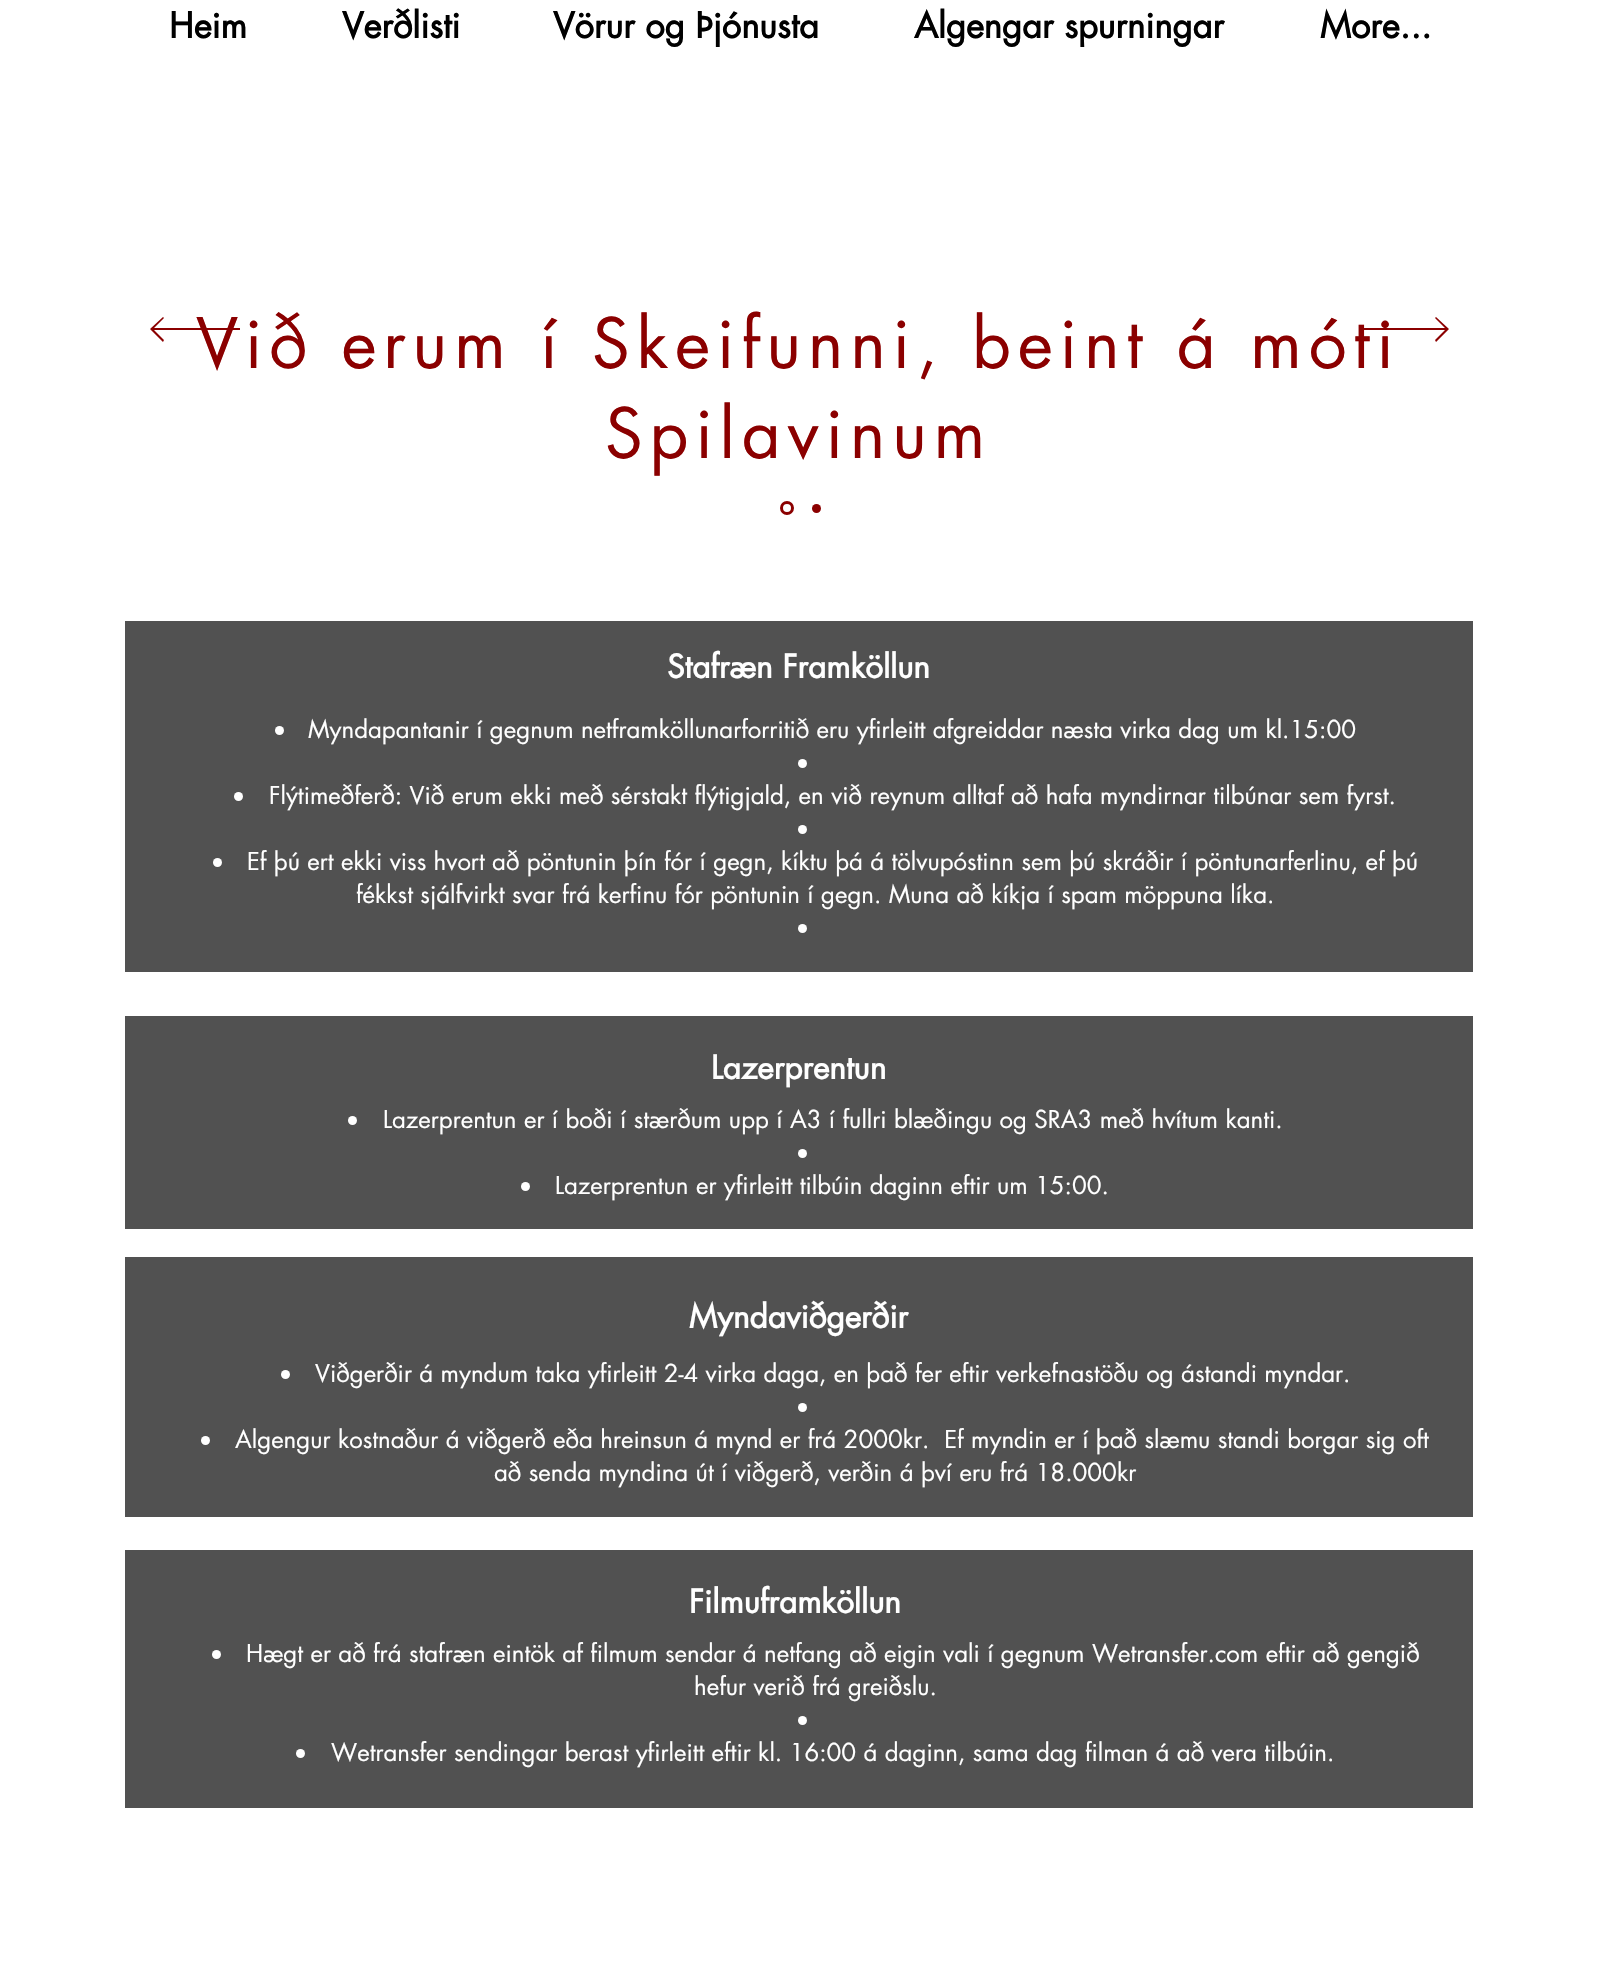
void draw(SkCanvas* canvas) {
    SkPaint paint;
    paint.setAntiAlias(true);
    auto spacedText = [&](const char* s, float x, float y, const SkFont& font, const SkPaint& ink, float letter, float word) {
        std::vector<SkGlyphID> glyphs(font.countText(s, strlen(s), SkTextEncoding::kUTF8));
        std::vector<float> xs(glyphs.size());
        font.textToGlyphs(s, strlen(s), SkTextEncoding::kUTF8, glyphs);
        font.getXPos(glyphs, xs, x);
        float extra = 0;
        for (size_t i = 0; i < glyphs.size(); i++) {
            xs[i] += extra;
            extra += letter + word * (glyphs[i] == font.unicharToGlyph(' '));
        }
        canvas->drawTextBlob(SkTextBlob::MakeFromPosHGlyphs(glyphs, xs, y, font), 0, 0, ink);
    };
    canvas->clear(0xFFFFFFFF);
    SkFont font1(fontMgr->matchFamilyStyle("futura", SkFontStyle::Bold()), 34.5f);
    font1.setSubpixel(true);
    paint.setColor(0xFF000000);
    canvas->drawString("Heim", 169, 38, font1, paint);
    canvas->drawString("Verðlisti", 342, 38, font1, paint);
    canvas->drawString("Vörur og Þjónusta", 553, 38, font1, paint);
    canvas->drawString("Algengar spurningar", 914, 38, font1, paint);
    canvas->drawString("More...", 1320, 38, font1, paint);
    paint.setColor(0xFF8B0000);
    canvas->drawPath(SkPathBuilder().moveTo(163, 317).lineTo(164, 318).lineTo(154, 328).lineTo(240, 328).lineTo(240, 330).lineTo(154, 330).lineTo(164, 340).lineTo(163, 342).lineTo(150, 329).close().detach(), paint);
    SkFont font2(fontMgr->matchFamilyStyle("futura", SkFontStyle::Normal()), 67.5f);
    font2.setSubpixel(true);
    spacedText("Við erum í Skeifunni, beint á móti", 196, 368, font2, paint, 6.75f, 0);
    spacedText("Spilavinum", 605, 458, font2, paint, 6.75f, 0);
    canvas->drawPath(SkPathBuilder().moveTo(1436, 317).lineTo(1435, 318).lineTo(1445, 328).lineTo(1359, 328).lineTo(1359, 330).lineTo(1445, 330).lineTo(1435, 340).lineTo(1436, 342).lineTo(1449, 329).close().detach(), paint);
    paint.setStyle(SkPaint::kStroke_Style);
    paint.setStrokeWidth(3);
    canvas->drawCircle(787, 508, 5.5f, paint);
    paint.setStyle(SkPaint::kFill_Style);
    canvas->drawCircle(816.5f, 508.5f, 4.5f, paint);
    paint.setColor(0xFF515151);
    canvas->drawRect(SkRect::MakeXYWH(125, 621, 1348, 351), paint);
    SkFont font3(fontMgr->matchFamilyStyle("futura", SkFontStyle::Bold()), 31.5f);
    font3.setSubpixel(true);
    paint.setColor(0xFFFFFFFF);
    canvas->drawString("Stafræn Framköllun", 667, 678, font3, paint);
    canvas->drawCircle(279.5f, 730.5f, 4.5f, paint);
    SkFont font4(fontMgr->matchFamilyStyle("futura", SkFontStyle::Normal()), 24);
    font4.setSubpixel(true);
    canvas->drawString("Myndapantanir í gegnum netframköllunarforritið eru yfirleitt afgreiddar næsta virka dag um kl.15:00", 308, 738, font4, paint);
    canvas->drawCircle(802.5f, 763.5f, 4.5f, paint);
    canvas->drawCircle(238.5f, 796.5f, 4.5f, paint);
    canvas->drawString("Flýtimeðferð: Við erum ekki með sérstakt flýtigjald, en við reynum alltaf að hafa myndirnar tilbúnar sem fyrst.", 269, 804, font4, paint);
    canvas->drawCircle(802.5f, 829.5f, 4.5f, paint);
    canvas->drawCircle(217.5f, 862.5f, 4.5f, paint);
    canvas->drawString("Ef þú ert ekki viss hvort að pöntunin þín fór í gegn, kíktu þá á tölvupóstinn sem þú skráðir í pöntunarferlinu, ef þú", 247, 870, font4, paint);
    canvas->drawString("fékkst sjálfvirkt svar frá kerfinu fór pöntunin í gegn. Muna að kíkja í spam möppuna líka.", 356, 903, font4, paint);
    canvas->drawCircle(802.5f, 928.5f, 4.5f, paint);
    paint.setColor(0xFF515151);
    canvas->drawRect(SkRect::MakeXYWH(125, 1016, 1348, 213), paint);
    paint.setColor(0xFFFFFFFF);
    canvas->drawString("Lazerprentun", 711, 1079, font3, paint);
    canvas->drawCircle(352.5f, 1120.5f, 4.5f, paint);
    canvas->drawString("Lazerprentun er í boði í stærðum upp í A3 í fullri blæðingu og SRA3 með hvítum kanti.", 383, 1128, font4, paint);
    canvas->drawCircle(802.5f, 1153.5f, 4.5f, paint);
    canvas->drawCircle(525.5f, 1186.5f, 4.5f, paint);
    canvas->drawString("Lazerprentun er yfirleitt tilbúin daginn eftir um 15:00.", 555, 1194, font4, paint);
    paint.setColor(0xFF515151);
    canvas->drawRect(SkRect::MakeXYWH(125, 1257, 1348, 260), paint);
    paint.setColor(0xFFFFFFFF);
    canvas->drawString("Myndaviðgerðir", 689, 1328, font3, paint);
    canvas->drawCircle(285.5f, 1374.5f, 4.5f, paint);
    canvas->drawString("Viðgerðir á myndum taka yfirleitt 2-4 virka daga, en það fer eftir verkefnastöðu og ástandi myndar.", 315, 1382, font4, paint);
    canvas->drawCircle(802.5f, 1407.5f, 4.5f, paint);
    canvas->drawCircle(205.5f, 1440.5f, 4.5f, paint);
    canvas->drawString("Algengur kostnaður á viðgerð eða hreinsun á mynd er frá 2000kr.  Ef myndin er í það slæmu standi borgar sig oft", 235, 1448, font4, paint);
    canvas->drawString("að senda myndina út í viðgerð, verðin á því eru frá 18.000kr", 494, 1481, font4, paint);
    paint.setColor(0xFF515151);
    canvas->drawRect(SkRect::MakeXYWH(125, 1550, 1348, 258), paint);
    paint.setColor(0xFFFFFFFF);
    canvas->drawString("Filmuframköllun", 689, 1613, font3, paint);
    canvas->drawCircle(216.5f, 1654.5f, 4.5f, paint);
    canvas->drawString("Hægt er að frá stafræn eintök af filmum sendar á netfang að eigin vali í gegnum Wetransfer.com eftir að gengið", 246, 1662, font4, paint);
    canvas->drawString("hefur verið frá greiðslu.", 694, 1695, font4, paint);
    canvas->drawCircle(802.5f, 1720.5f, 4.5f, paint);
    canvas->drawCircle(300.5f, 1753.5f, 4.5f, paint);
    canvas->drawString("Wetransfer sendingar berast yfirleitt eftir kl. 16:00 á daginn, sama dag filman á að vera tilbúin.", 331, 1761, font4, paint);
}
